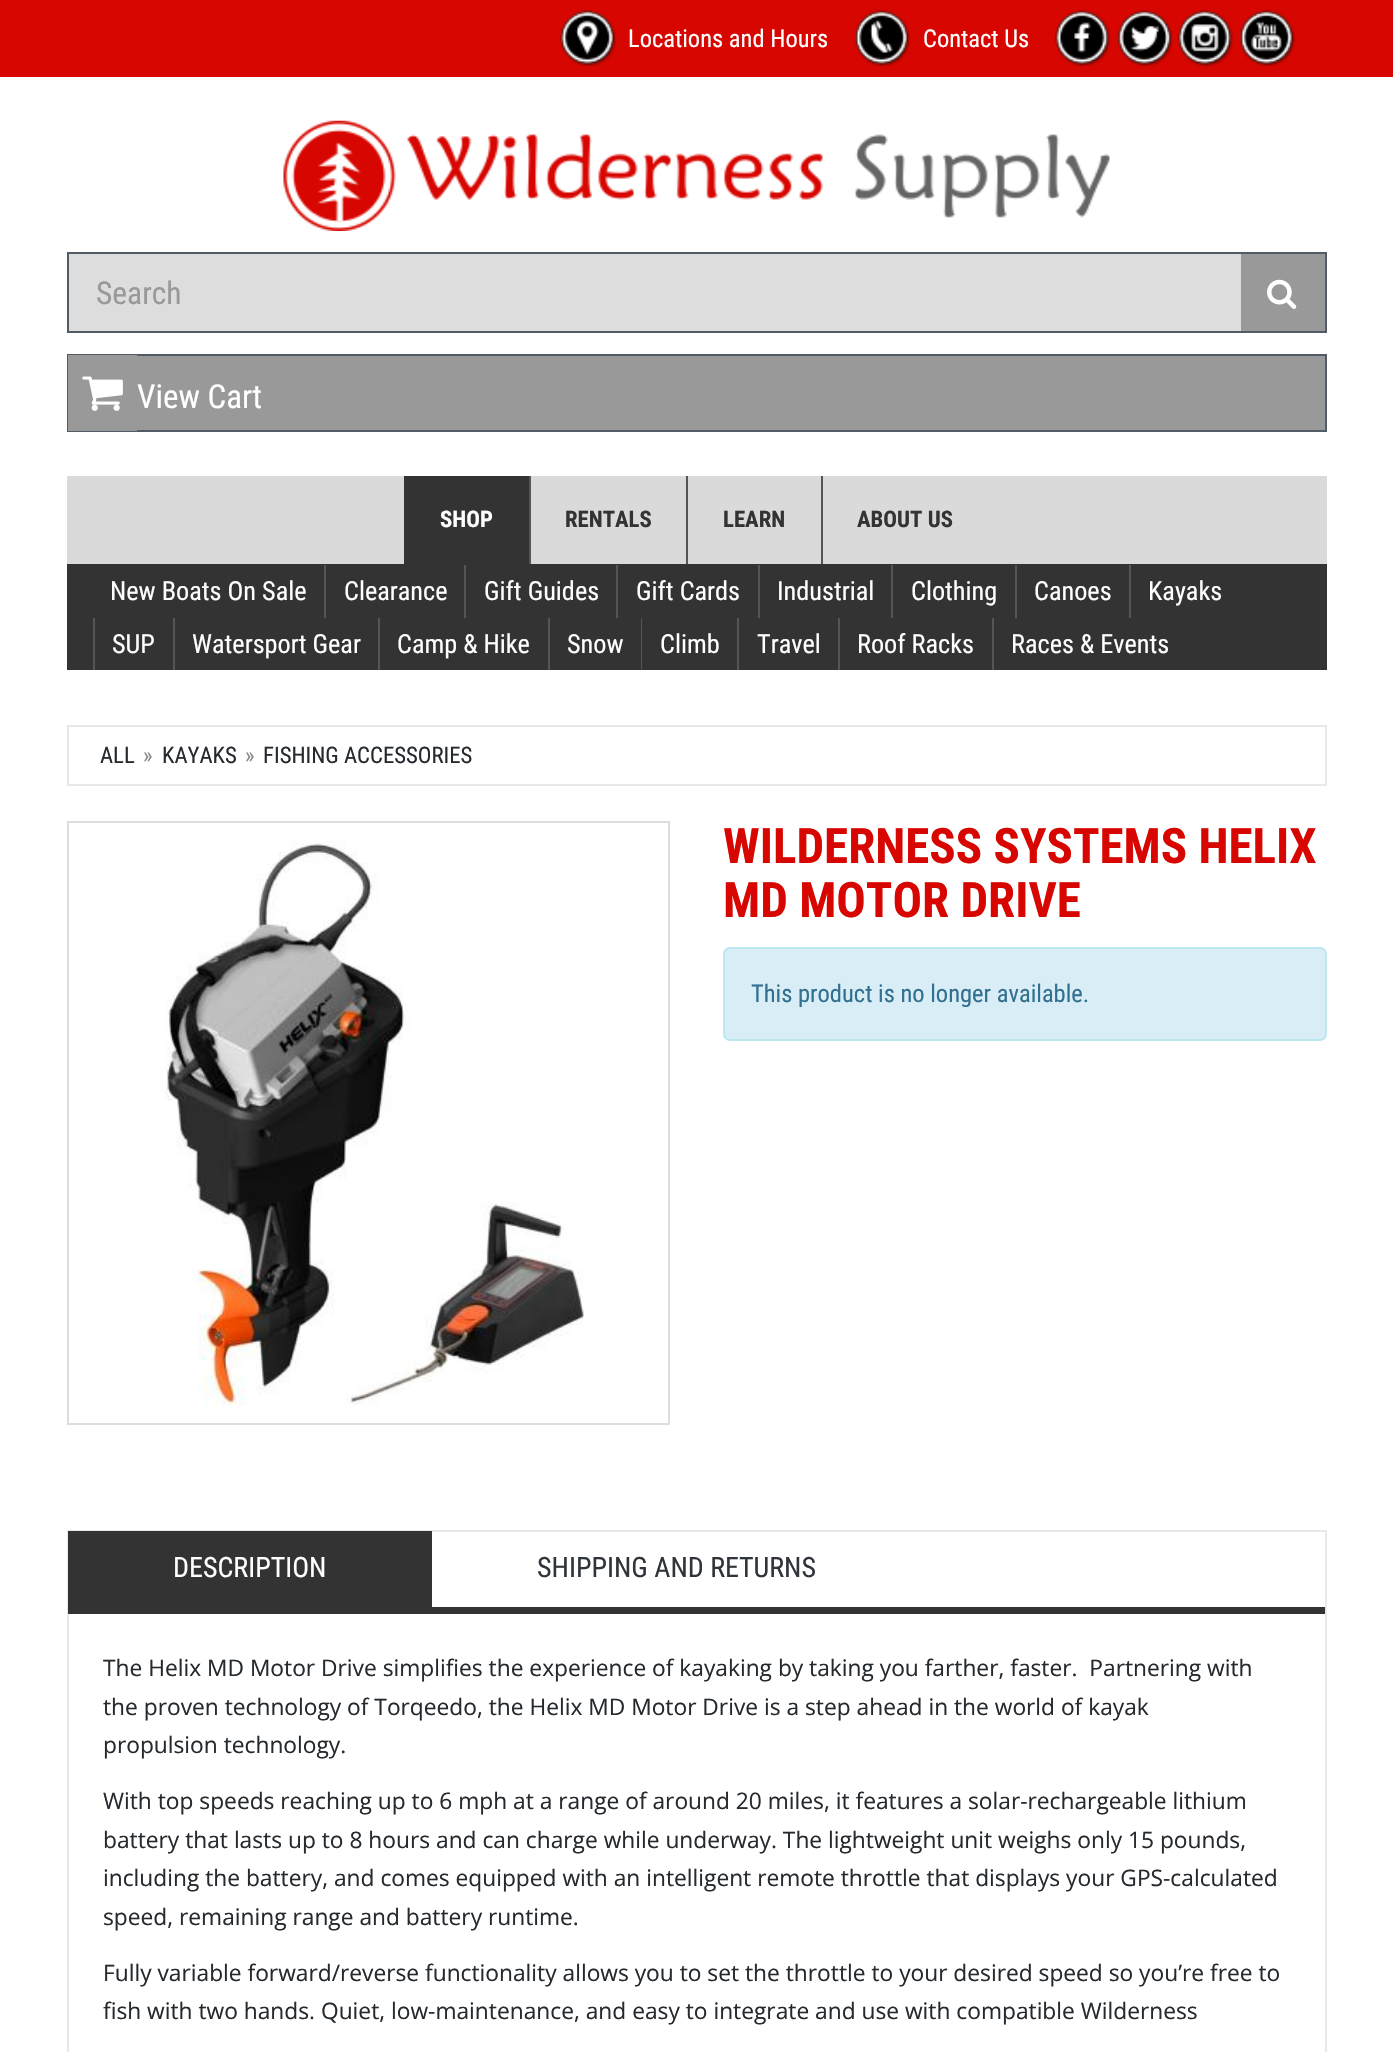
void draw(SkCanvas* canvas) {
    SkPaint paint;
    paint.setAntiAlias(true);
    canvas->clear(0xFFFFFFFF);
    paint.setColor(0xFFD70600);
    canvas->drawRect(SkRect::MakeXYWH(0, 0, 1393, 77), paint);
    canvas->drawImageRect(SkImages::DeferredFromEncodedData(SkData::MakeFromFileName("img1.png")), SkRect::MakeXYWH(560, 10, 56, 57), SkSamplingOptions());
    SkFont font1(fontMgr->matchFamilyStyle("Roboto Condensed", SkFontStyle::Normal()), 24.5f);
    font1.setSubpixel(true);
    paint.setColor(0xFFFFFFFF);
    canvas->drawString("Locations and Hours", 628, 47, font1, paint);
    canvas->drawImageRect(SkImages::DeferredFromEncodedData(SkData::MakeFromFileName("img2.png")), SkRect::MakeXYWH(855, 10, 55, 57), SkSamplingOptions());
    canvas->drawString("Contact Us", 923, 47, font1, paint);
    canvas->drawImageRect(SkImages::DeferredFromEncodedData(SkData::MakeFromFileName("img3.png")), SkRect::MakeXYWH(1055, 10, 56, 57), SkSamplingOptions());
    canvas->drawImageRect(SkImages::DeferredFromEncodedData(SkData::MakeFromFileName("img4.png")), SkRect::MakeXYWH(1117, 10, 56, 57), SkSamplingOptions());
    canvas->drawImageRect(SkImages::DeferredFromEncodedData(SkData::MakeFromFileName("img5.png")), SkRect::MakeXYWH(1177, 10, 57, 57), SkSamplingOptions());
    canvas->drawImageRect(SkImages::DeferredFromEncodedData(SkData::MakeFromFileName("img6.png")), SkRect::MakeXYWH(1240, 10, 55, 57), SkSamplingOptions());
    canvas->drawImageRect(SkImages::DeferredFromEncodedData(SkData::MakeFromFileName("img7.png")), SkRect::MakeXYWH(283, 120, 827, 111), SkSamplingOptions());
    paint.setColor(0xFF999999);
    canvas->drawRect(SkRect::MakeXYWH(1241, 254, 84, 77), paint);
    paint.setColor(0xFF525C66);
    canvas->drawRect(SkRect::MakeXYWH(67, 252, 1260, 2), paint);
    canvas->drawRect(SkRect::MakeXYWH(1325, 252, 2, 81), paint);
    canvas->drawRect(SkRect::MakeXYWH(67, 331, 1260, 2), paint);
    canvas->drawImageRect(SkImages::DeferredFromEncodedData(SkData::MakeFromFileName("img8.png")), SkRect::MakeXYWH(1267, 279, 30, 30), SkSamplingOptions());
    paint.setColor(0xFFDDDDDD);
    canvas->drawRect(SkRect::MakeXYWH(69, 254, 1172, 77), paint);
    paint.setColor(0xFF525C66);
    canvas->drawRect(SkRect::MakeXYWH(67, 252, 2, 81), paint);
    SkFont font2(fontMgr->matchFamilyStyle("Roboto Condensed", SkFontStyle::Normal()), 31.5f);
    font2.setSubpixel(true);
    paint.setColor(0xFF999999);
    canvas->drawString("Search", 96, 304, font2, paint);
    canvas->drawRect(SkRect::MakeXYWH(137, 356, 1188, 74), paint);
    paint.setStyle(SkPaint::kStroke_Style);
    paint.setStrokeWidth(2);
    paint.setColor(0xFF525C66);
    canvas->drawRect(SkRect::MakeXYWH(68, 355, 1258, 76), paint);
    paint.setStyle(SkPaint::kFill_Style);
    paint.setColor(0xFF999999);
    canvas->drawRect(SkRect::MakeXYWH(68, 355, 69, 76), paint);
    canvas->drawImageRect(SkImages::DeferredFromEncodedData(SkData::MakeFromFileName("img9.png")), SkRect::MakeXYWH(82, 376, 41, 35), SkSamplingOptions());
    SkFont font3(fontMgr->matchFamilyStyle("Roboto Condensed", SkFontStyle::Normal()), 33);
    font3.setSubpixel(true);
    paint.setColor(0xFFFFFFFF);
    canvas->drawString("View Cart", 137, 408, font3, paint);
    paint.setColor(0xFFDADADA);
    canvas->drawRect(SkRect::MakeXYWH(67, 476, 1260, 88), paint);
    paint.setColor(0xFF333333);
    canvas->drawRect(SkRect::MakeXYWH(404, 476, 125, 88), paint);
    SkFont font4(fontMgr->matchFamilyStyle("Roboto Condensed", SkFontStyle::Bold()), 22.75f);
    font4.setSubpixel(true);
    paint.setColor(0xFFFFFFFF);
    canvas->drawString("SHOP", 440, 527, font4, paint);
    paint.setColor(0xFF555555);
    canvas->drawRect(SkRect::MakeXYWH(529, 476, 2, 88), paint);
    paint.setColor(0xFF333333);
    canvas->drawString("RENTALS", 565, 527, font4, paint);
    paint.setColor(0xFF555555);
    canvas->drawRect(SkRect::MakeXYWH(686, 476, 2, 88), paint);
    paint.setColor(0xFF333333);
    canvas->drawString("LEARN", 723, 527, font4, paint);
    paint.setColor(0xFF555555);
    canvas->drawRect(SkRect::MakeXYWH(821, 476, 2, 88), paint);
    paint.setColor(0xFF333333);
    canvas->drawString("ABOUT US", 857, 527, font4, paint);
    canvas->drawRect(SkRect::MakeXYWH(67, 564, 1260, 106), paint);
    SkFont font5(fontMgr->matchFamilyStyle("Roboto Condensed", SkFontStyle::Normal()), 26.25f);
    font5.setSubpixel(true);
    paint.setColor(0xFFFFFFFF);
    canvas->drawString("New Boats On Sale", 110, 600, font5, paint);
    paint.setColor(0xFF555555);
    canvas->drawRect(SkRect::MakeXYWH(324, 565, 2, 53), paint);
    paint.setColor(0xFFFFFFFF);
    canvas->drawString("Clearance", 344, 600, font5, paint);
    paint.setColor(0xFF555555);
    canvas->drawRect(SkRect::MakeXYWH(464, 565, 2, 53), paint);
    paint.setColor(0xFFFFFFFF);
    canvas->drawString("Gift Guides", 484, 600, font5, paint);
    paint.setColor(0xFF555555);
    canvas->drawRect(SkRect::MakeXYWH(616, 565, 2, 53), paint);
    paint.setColor(0xFFFFFFFF);
    canvas->drawString("Gift Cards", 636, 600, font5, paint);
    paint.setColor(0xFF555555);
    canvas->drawRect(SkRect::MakeXYWH(758, 565, 2, 53), paint);
    paint.setColor(0xFFFFFFFF);
    canvas->drawString("Industrial", 777, 600, font5, paint);
    paint.setColor(0xFF555555);
    canvas->drawRect(SkRect::MakeXYWH(891, 565, 2, 53), paint);
    paint.setColor(0xFFFFFFFF);
    canvas->drawString("Clothing", 911, 600, font5, paint);
    paint.setColor(0xFF555555);
    canvas->drawRect(SkRect::MakeXYWH(1015, 565, 2, 53), paint);
    paint.setColor(0xFFFFFFFF);
    canvas->drawString("Canoes", 1034, 600, font5, paint);
    paint.setColor(0xFF555555);
    canvas->drawRect(SkRect::MakeXYWH(1129, 565, 2, 53), paint);
    paint.setColor(0xFFFFFFFF);
    canvas->drawString("Kayaks", 1148, 600, font5, paint);
    paint.setColor(0xFF555555);
    canvas->drawRect(SkRect::MakeXYWH(93, 618, 2, 52), paint);
    paint.setColor(0xFFFFFFFF);
    canvas->drawString("SUP", 112, 653, font5, paint);
    paint.setColor(0xFF555555);
    canvas->drawRect(SkRect::MakeXYWH(173, 618, 2, 52), paint);
    paint.setColor(0xFFFFFFFF);
    canvas->drawString("Watersport Gear", 192, 653, font5, paint);
    paint.setColor(0xFF555555);
    canvas->drawRect(SkRect::MakeXYWH(378, 618, 2, 52), paint);
    paint.setColor(0xFFFFFFFF);
    canvas->drawString("Camp & Hike", 397, 653, font5, paint);
    paint.setColor(0xFF555555);
    canvas->drawRect(SkRect::MakeXYWH(548, 618, 2, 52), paint);
    paint.setColor(0xFFFFFFFF);
    canvas->drawString("Snow", 567, 653, font5, paint);
    paint.setColor(0xFF555555);
    canvas->drawRect(SkRect::MakeXYWH(641, 618, 1, 52), paint);
    paint.setColor(0xFFFFFFFF);
    canvas->drawString("Climb", 660, 653, font5, paint);
    paint.setColor(0xFF555555);
    canvas->drawRect(SkRect::MakeXYWH(737, 618, 2, 52), paint);
    paint.setColor(0xFFFFFFFF);
    canvas->drawString("Travel", 757, 653, font5, paint);
    paint.setColor(0xFF555555);
    canvas->drawRect(SkRect::MakeXYWH(838, 618, 2, 52), paint);
    paint.setColor(0xFFFFFFFF);
    canvas->drawString("Roof Racks", 857, 653, font5, paint);
    paint.setColor(0xFF555555);
    canvas->drawRect(SkRect::MakeXYWH(992, 618, 2, 52), paint);
    paint.setColor(0xFFFFFFFF);
    canvas->drawString("Races & Events", 1011, 653, font5, paint);
    paint.setStyle(SkPaint::kStroke_Style);
    paint.setColor(0xFFE8E8E8);
    canvas->drawRect(SkRect::MakeXYWH(68, 726, 1258, 59), paint);
    SkFont font6(fontMgr->matchFamilyStyle("Roboto Condensed", SkFontStyle::Normal()), 22.75f);
    font6.setSubpixel(true);
    paint.setStyle(SkPaint::kFill_Style);
    paint.setColor(0xFF252A2F);
    canvas->drawString("ALL", 100, 763, font6, paint);
    paint.setColor(0xFF878A8C);
    canvas->drawString("»", 143, 763, font6, paint);
    paint.setColor(0xFF252A2F);
    canvas->drawString("KAYAKS", 162, 763, font6, paint);
    paint.setColor(0xFF878A8C);
    canvas->drawString("»", 245, 763, font6, paint);
    paint.setColor(0xFF252A2F);
    canvas->drawString("FISHING ACCESSORIES", 263, 763, font6, paint);
    paint.setStyle(SkPaint::kStroke_Style);
    paint.setColor(0xFFDDDDDD);
    canvas->drawRect(SkRect::MakeXYWH(68, 822, 601, 602), paint);
    canvas->drawImageRect(SkImages::DeferredFromEncodedData(SkData::MakeFromFileName("img10.png")), SkRect::MakeXYWH(165, 841, 419, 565), SkSamplingOptions());
    SkFont font7(fontMgr->matchFamilyStyle("Roboto Condensed", SkFontStyle::Bold()), 49);
    font7.setSubpixel(true);
    paint.setStyle(SkPaint::kFill_Style);
    paint.setColor(0xFFD70600);
    canvas->drawString("WILDERNESS SYSTEMS HELIX", 723, 863, font7, paint);
    canvas->drawString("MD MOTOR DRIVE", 723, 917, font7, paint);
    paint.setColor(0xFFD9EDF7);
    canvas->drawRoundRect(SkRect::MakeXYWH(724, 948, 602, 92), 6, 6, paint);
    paint.setStyle(SkPaint::kStroke_Style);
    paint.setColor(0xFFBCE8F1);
    canvas->drawRoundRect(SkRect::MakeXYWH(724, 948, 602, 92), 6, 6, paint);
    paint.setStyle(SkPaint::kFill_Style);
    paint.setColor(0xFF31708F);
    canvas->drawString("This product is no longer available.", 751, 1002, font1, paint);
    paint.setStyle(SkPaint::kStroke_Style);
    paint.setColor(0xFFE8E8E8);
    canvas->drawRect(SkRect::MakeXYWH(68, 1531, 1258, 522), paint);
    paint.setStyle(SkPaint::kFill_Style);
    paint.setColor(0xFF333333);
    canvas->drawRect(SkRect::MakeXYWH(68, 1607, 1257, 7), paint);
    canvas->drawRect(SkRect::MakeXYWH(68, 1531, 364, 76), paint);
    SkFont font8(fontMgr->matchFamilyStyle("Roboto Condensed", SkFontStyle::Normal()), 28);
    font8.setSubpixel(true);
    paint.setColor(0xFFFFFFFF);
    canvas->drawString("DESCRIPTION", 173, 1577, font8, paint);
    paint.setColor(0xFF2F353B);
    canvas->drawString("SHIPPING AND RETURNS", 537, 1577, font8, paint);
    SkFont font9(fontMgr->matchFamilyStyle("Open Sans", SkFontStyle::Normal()), 22.75f);
    font9.setSubpixel(true);
    paint.setColor(0xFF252A2F);
    canvas->drawString("The Helix MD Motor Drive simplifies the experience of kayaking by taking you farther, faster.  Partnering with", 103, 1676, font9, paint);
    canvas->drawString("the proven technology of Torqeedo, the Helix MD Motor Drive is a step ahead in the world of kayak", 103, 1715, font9, paint);
    canvas->drawString("propulsion technology.", 103, 1753, font9, paint);
    canvas->drawString("With top speeds reaching up to 6 mph at a range of around 20 miles, it features a solar-rechargeable lithium", 103, 1809, font9, paint);
    canvas->drawString("battery that lasts up to 8 hours and can charge while underway. The lightweight unit weighs only 15 pounds,", 103, 1848, font9, paint);
    canvas->drawString("including the battery, and comes equipped with an intelligent remote throttle that displays your GPS-calculated", 103, 1886, font9, paint);
    canvas->drawString("speed, remaining range and battery runtime.", 103, 1925, font9, paint);
    canvas->drawString("Fully variable forward/reverse functionality allows you to set the throttle to your desired speed so you’re free to", 103, 1981, font9, paint);
    canvas->drawString("fish with two hands. Quiet, low-maintenance, and easy to integrate and use with compatible Wilderness", 103, 2019, font9, paint);
}
